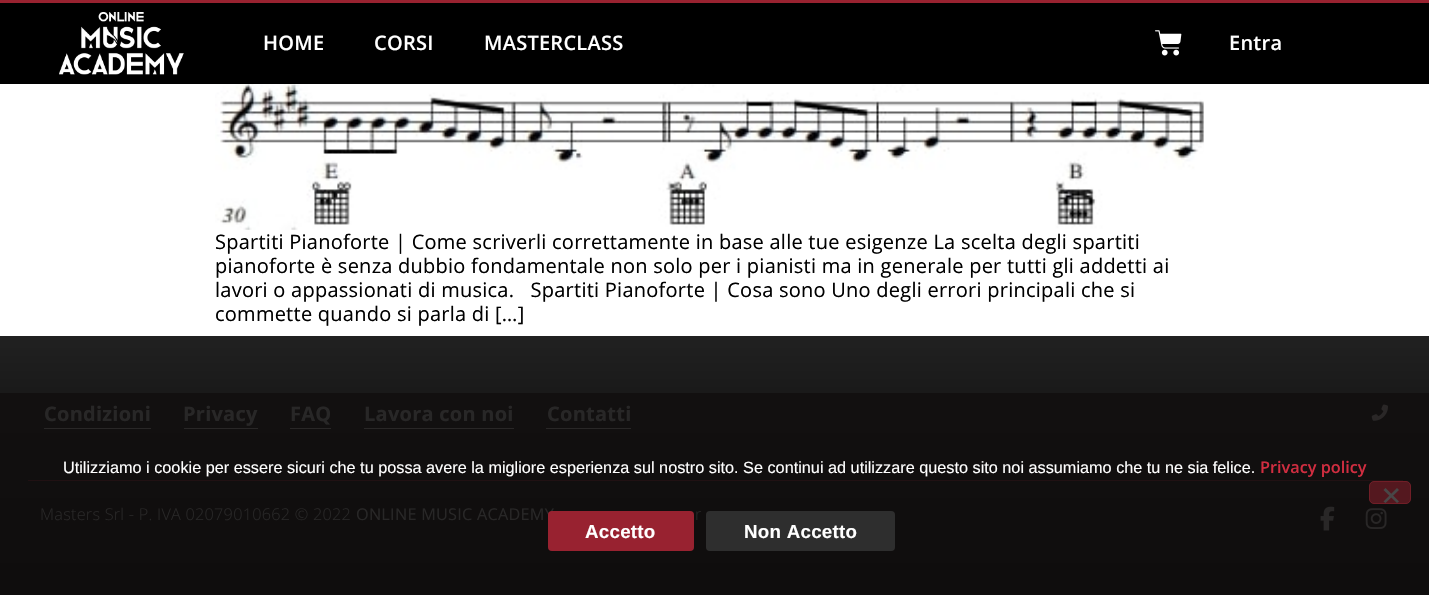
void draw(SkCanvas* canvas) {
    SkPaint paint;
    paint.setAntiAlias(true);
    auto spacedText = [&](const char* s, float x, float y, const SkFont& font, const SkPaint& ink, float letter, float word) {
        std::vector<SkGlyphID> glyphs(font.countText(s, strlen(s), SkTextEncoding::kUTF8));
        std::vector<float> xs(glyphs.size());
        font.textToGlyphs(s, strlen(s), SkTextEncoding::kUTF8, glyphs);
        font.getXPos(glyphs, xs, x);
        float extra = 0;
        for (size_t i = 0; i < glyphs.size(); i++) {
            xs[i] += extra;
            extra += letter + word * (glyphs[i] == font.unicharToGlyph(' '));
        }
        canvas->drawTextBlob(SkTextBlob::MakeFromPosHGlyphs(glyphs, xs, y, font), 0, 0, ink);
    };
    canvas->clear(0xFFFFFFFF);
    paint.setColor(0xFF000000);
    canvas->drawRect(SkRect::MakeXYWH(0, 3, 1429, 81), paint);
    paint.setColor(0xFF982230);
    canvas->drawRect(SkRect::MakeXYWH(0, 0, 1429, 3), paint);
    canvas->drawImageRect(SkImages::DeferredFromEncodedData(SkData::MakeFromFileName("img1.png")), SkRect::MakeXYWH(59, 12, 125, 63), SkSamplingOptions());
    SkFont font1(fontMgr->matchFamilyStyle("Open Sans", SkFontStyle(600, SkFontStyle::kNormal_Width, SkFontStyle::kUpright_Slant)), 20);
    font1.setSubpixel(true);
    paint.setColor(0xFFFFFFFF);
    spacedText("HOME", 263, 50, font1, paint, 0.25f, 0);
    spacedText("CORSI", 374, 50, font1, paint, 0.25f, 0);
    spacedText("MASTERCLASS", 484, 50, font1, paint, 0.25f, 0);
    canvas->drawImageRect(SkImages::DeferredFromEncodedData(SkData::MakeFromFileName("img2.png")), SkRect::MakeXYWH(1155, 30, 27, 26), SkSamplingOptions());
    spacedText("Entra", 1229, 50, font1, paint, 0.25f, 0);
    canvas->drawImageRect(SkImages::DeferredFromEncodedData(SkData::MakeFromFileName("img3.png")), SkRect::MakeXYWH(215, 84, 989, 146), SkSamplingOptions());
    SkFont font2(fontMgr->matchFamilyStyle("Open Sans", SkFontStyle::Normal()), 20);
    font2.setSubpixel(true);
    paint.setColor(0xFF000000);
    spacedText("Spartiti Pianoforte | Come scriverli correttamente in base alle tue esigenze La scelta degli spartiti", 215, 249, font2, paint, 0.25f, 0);
    spacedText("pianoforte è senza dubbio fondamentale non solo per i pianisti ma in generale per tutti gli addetti ai", 215, 273, font2, paint, 0.25f, 0);
    spacedText("lavori o appassionati di musica.   Spartiti Pianoforte | Cosa sono Uno degli errori principali che si", 215, 297, font2, paint, 0.25f, 0);
    spacedText("commette quando si parla di […]", 215, 321, font2, paint, 0.25f, 0);
    {
        const SkColor colors[] = {0xFF212121, 0xFF000000};
        const float stops[] = {0, 1};
        const SkPoint ends[] = {{715, 336}, {715, 595}};
        paint.setShader(SkGradientShader::MakeLinear(ends, colors, stops, 2, SkTileMode::kClamp));
        paint.setAlpha(255);
    }
    canvas->drawRect(SkRect::MakeXYWH(0, 336, 1429, 57), paint);
    {
        const SkColor colors[] = {0xFF131111, 0xFF0F0D0D};
        const float stops[] = {0, 1};
        const SkPoint ends[] = {{715, 336}, {715, 595}};
        paint.setShader(SkGradientShader::MakeLinear(ends, colors, stops, 2, SkTileMode::kClamp));
        paint.setAlpha(255);
    }
    canvas->drawRect(SkRect::MakeXYWH(0, 393, 1429, 202), paint);
    paint.setShader(nullptr);
    paint.setColor(0xFF211113);
    canvas->drawRect(SkRect::MakeXYWH(28, 480, 1375, 1), paint);
    SkFont font3(fontMgr->matchFamilyStyle("Open Sans", SkFontStyle::Bold()), 20);
    font3.setSubpixel(true);
    paint.setColor(0xFF282727);
    spacedText("Condizioni", 44, 421, font3, paint, 0.25f, 0);
    paint.setColor(0xFF292727);
    canvas->drawRect(SkRect::MakeXYWH(44, 428, 107, 1), paint);
    paint.setColor(0xFF282727);
    spacedText("Privacy", 183, 421, font3, paint, 0.25f, 0);
    paint.setColor(0xFF292727);
    canvas->drawRect(SkRect::MakeXYWH(184, 428, 74, 1), paint);
    paint.setColor(0xFF282727);
    spacedText("FAQ", 290, 421, font3, paint, 0.25f, 0);
    paint.setColor(0xFF292727);
    canvas->drawRect(SkRect::MakeXYWH(290, 428, 41, 1), paint);
    paint.setColor(0xFF282727);
    spacedText("Lavora con noi", 364, 421, font3, paint, 0.25f, 0);
    paint.setColor(0xFF292727);
    canvas->drawRect(SkRect::MakeXYWH(364, 428, 150, 1), paint);
    paint.setColor(0xFF282727);
    spacedText("Contatti", 547, 421, font3, paint, 0.25f, 0);
    paint.setColor(0xFF292727);
    canvas->drawRect(SkRect::MakeXYWH(546, 428, 85, 1), paint);
    canvas->drawImageRect(SkImages::DeferredFromEncodedData(SkData::MakeFromFileName("img4.png")), SkRect::MakeXYWH(1371, 404, 17, 17), SkSamplingOptions());
    SkFont font4(fontMgr->matchFamilyStyle("Open Sans", SkFontStyle(300, SkFontStyle::kNormal_Width, SkFontStyle::kUpright_Slant)), 16.25f);
    font4.setSubpixel(true);
    paint.setColor(0xFF282727);
    spacedText("Masters Srl - P. IVA 02079010662 © 2022", 40, 520, font4, paint, 0.25f, 0);
    SkFont font5(fontMgr->matchFamilyStyle("Open Sans", SkFontStyle::Normal()), 16.25f);
    font5.setSubpixel(true);
    spacedText("ONLINE MUSIC ACADEMY", 356, 520, font5, paint, 0.25f, 0);
    spacedText("r", 695, 520, font4, paint, 0.25f, 0);
    canvas->drawImageRect(SkImages::DeferredFromEncodedData(SkData::MakeFromFileName("img5.png")), SkRect::MakeXYWH(1320, 506, 15, 25), SkSamplingOptions());
    canvas->drawImageRect(SkImages::DeferredFromEncodedData(SkData::MakeFromFileName("img6.png")), SkRect::MakeXYWH(1365, 508, 22, 21), SkSamplingOptions());
    SkFont font6(fontMgr->matchFamilyStyle("Liberation Sans", SkFontStyle::Normal()), 16.25f);
    font6.setSubpixel(true);
    paint.setColor(0xFFFFFFFF);
    canvas->drawString("Utilizziamo i cookie per essere sicuri che tu possa avere la migliore esperienza sul nostro sito. Se continui ad utilizzare questo sito noi assumiamo che tu ne sia felice.", 63, 473, font6, paint);
    SkFont font7(fontMgr->matchFamilyStyle("Open Sans", SkFontStyle(600, SkFontStyle::kNormal_Width, SkFontStyle::kUpright_Slant)), 16.25f);
    font7.setSubpixel(true);
    paint.setColor(0xFFD12D40);
    canvas->drawString("Privacy policy", 1260, 473, font7, paint);
    paint.setColor(0xFF54181F);
    canvas->drawRoundRect(SkRect::MakeXYWH(1369.5f, 481.5f, 41, 22), 4.5f, 4.5f, paint);
    paint.setStyle(SkPaint::kStroke_Style);
    paint.setStrokeWidth(1);
    paint.setColor(0xFF711E27);
    canvas->drawRoundRect(SkRect::MakeXYWH(1369.5f, 481.5f, 41, 22), 4.5f, 4.5f, paint);
    paint.setStyle(SkPaint::kFill_Style);
    paint.setColor(0xFF484747);
    canvas->drawPath(SkPathBuilder().moveTo(1397, 488).lineTo(1399, 490).lineTo(1385.5f, 503).lineTo(1383.5f, 501.5f).close().detach(), paint);
    canvas->drawPath(SkPathBuilder().moveTo(1383.5f, 490).lineTo(1385.5f, 488).lineTo(1399, 501.5f).lineTo(1397, 503).close().detach(), paint);
    paint.setColor(0xFF982230);
    canvas->drawRoundRect(SkRect::MakeXYWH(548, 511, 146, 40), 4, 4, paint);
    SkFont font8(fontMgr->matchFamilyStyle("Liberation Sans", SkFontStyle::Bold()), 18.75f);
    font8.setSubpixel(true);
    paint.setColor(0xFFFFFFFF);
    spacedText("Accetto", 585, 538, font8, paint, 0.25f, 0);
    paint.setColor(0xFF2E2E2E);
    canvas->drawRoundRect(SkRect::MakeXYWH(706, 511, 189, 40), 4, 4, paint);
    paint.setColor(0xFFFFFFFF);
    spacedText("Non Accetto", 744, 538, font8, paint, 0.25f, 0);
}
